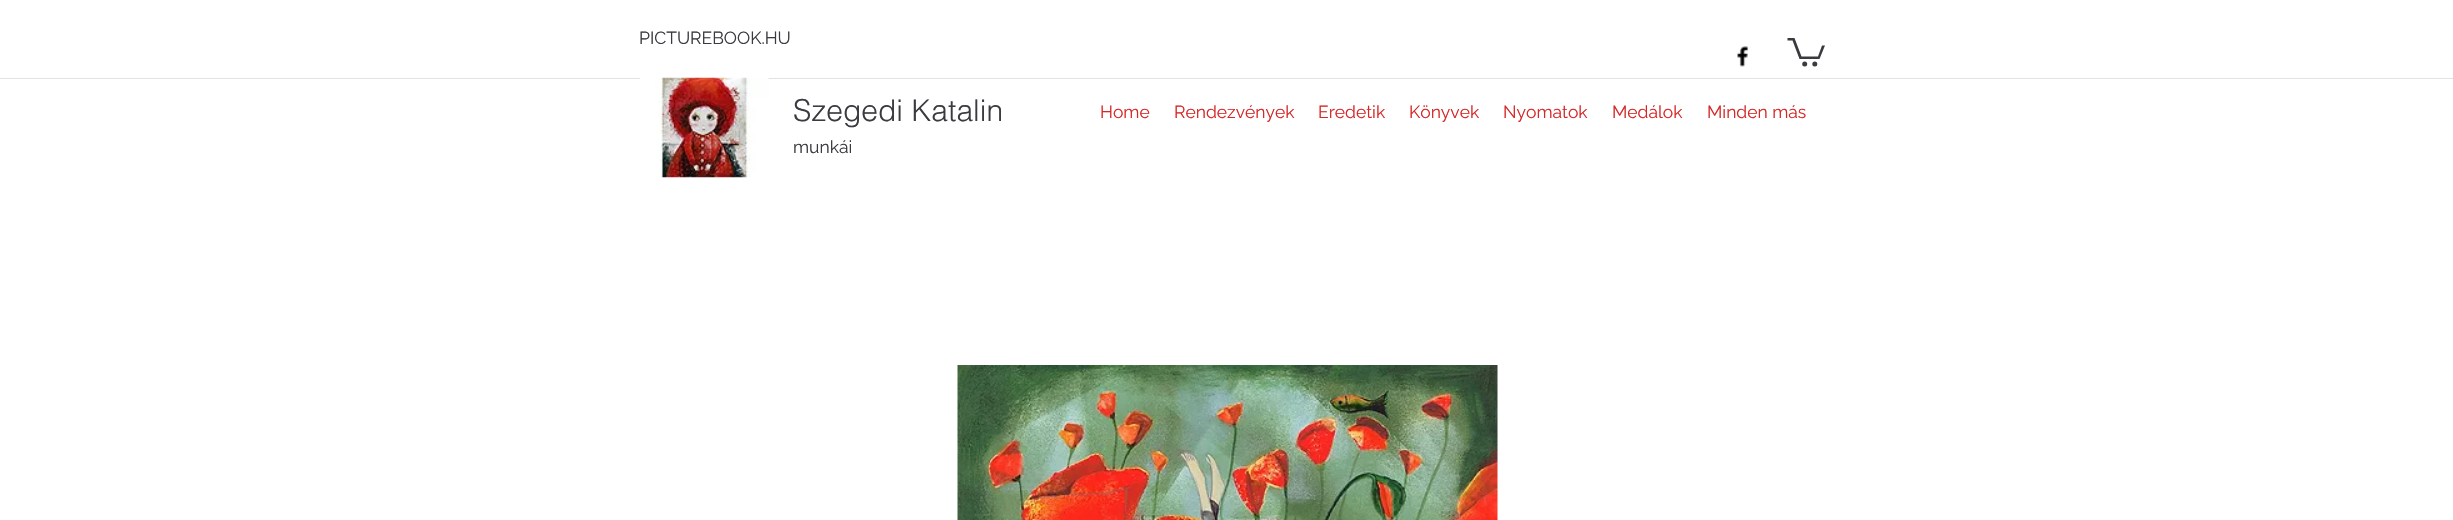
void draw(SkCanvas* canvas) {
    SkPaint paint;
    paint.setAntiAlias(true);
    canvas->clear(0xFFFFFFFF);
    SkFont font1(fontMgr->matchFamilyStyle("Raleway", SkFontStyle::Normal()), 17.5f);
    font1.setSubpixel(true);
    paint.setColor(0xFF3A3B3F);
    canvas->drawString("PICTUREBOOK.HU", 639, 44, font1, paint);
    canvas->drawImageRect(SkImages::DeferredFromEncodedData(SkData::MakeFromFileName("img1.png")), SkRect::MakeXYWH(1737, 46, 12, 21), SkSamplingOptions());
    canvas->drawPath(SkPathBuilder().moveTo(1825, 45.5f).lineTo(1819.5f, 59).lineTo(1799.5f, 59).lineTo(1792.5f, 40.5f).lineTo(1787.5f, 40.5f).lineTo(1787.5f, 38).lineTo(1794.5f, 38).lineTo(1801.5f, 56.5f).lineTo(1818, 56.5f).lineTo(1822, 45.5f).detach(), paint);
    canvas->drawCircle(1814.8f, 64, 2.5f, paint);
    canvas->drawCircle(1804.7f, 64, 2.5f, paint);
    paint.setColor(0xFFE1E2E2);
    canvas->drawRect(SkRect::MakeXYWH(0, 78, 2453, 1), paint);
    canvas->drawImageRect(SkImages::DeferredFromEncodedData(SkData::MakeFromFileName("img2.png")), SkRect::MakeXYWH(640, 77, 129, 101), SkSamplingOptions());
    SkFont font2(fontMgr->matchFamilyStyle("helvetica", SkFontStyle(300, SkFontStyle::kNormal_Width, SkFontStyle::kUpright_Slant)), 30);
    font2.setSubpixel(true);
    paint.setColor(0xFF3A3B3F);
    canvas->drawString("Szegedi Katalin", 793, 121, font2, paint);
    paint.setColor(0xFFD62727);
    canvas->drawString("Home", 1100, 118, font1, paint);
    canvas->drawString("Rendezvények", 1174, 118, font1, paint);
    canvas->drawString("Eredetik", 1318, 118, font1, paint);
    canvas->drawString("Könyvek", 1409, 118, font1, paint);
    canvas->drawString("Nyomatok", 1503, 118, font1, paint);
    canvas->drawString("Medálok", 1612, 118, font1, paint);
    canvas->drawString("Minden más", 1707, 118, font1, paint);
    paint.setColor(0xFF3A3B3F);
    canvas->drawString("munkái", 793, 153, font1, paint);
    canvas->drawImageRect(SkImages::DeferredFromEncodedData(SkData::MakeFromFileName("img3.png")), SkRect::MakeXYWH(957, 365, 541, 155), SkSamplingOptions());
}
